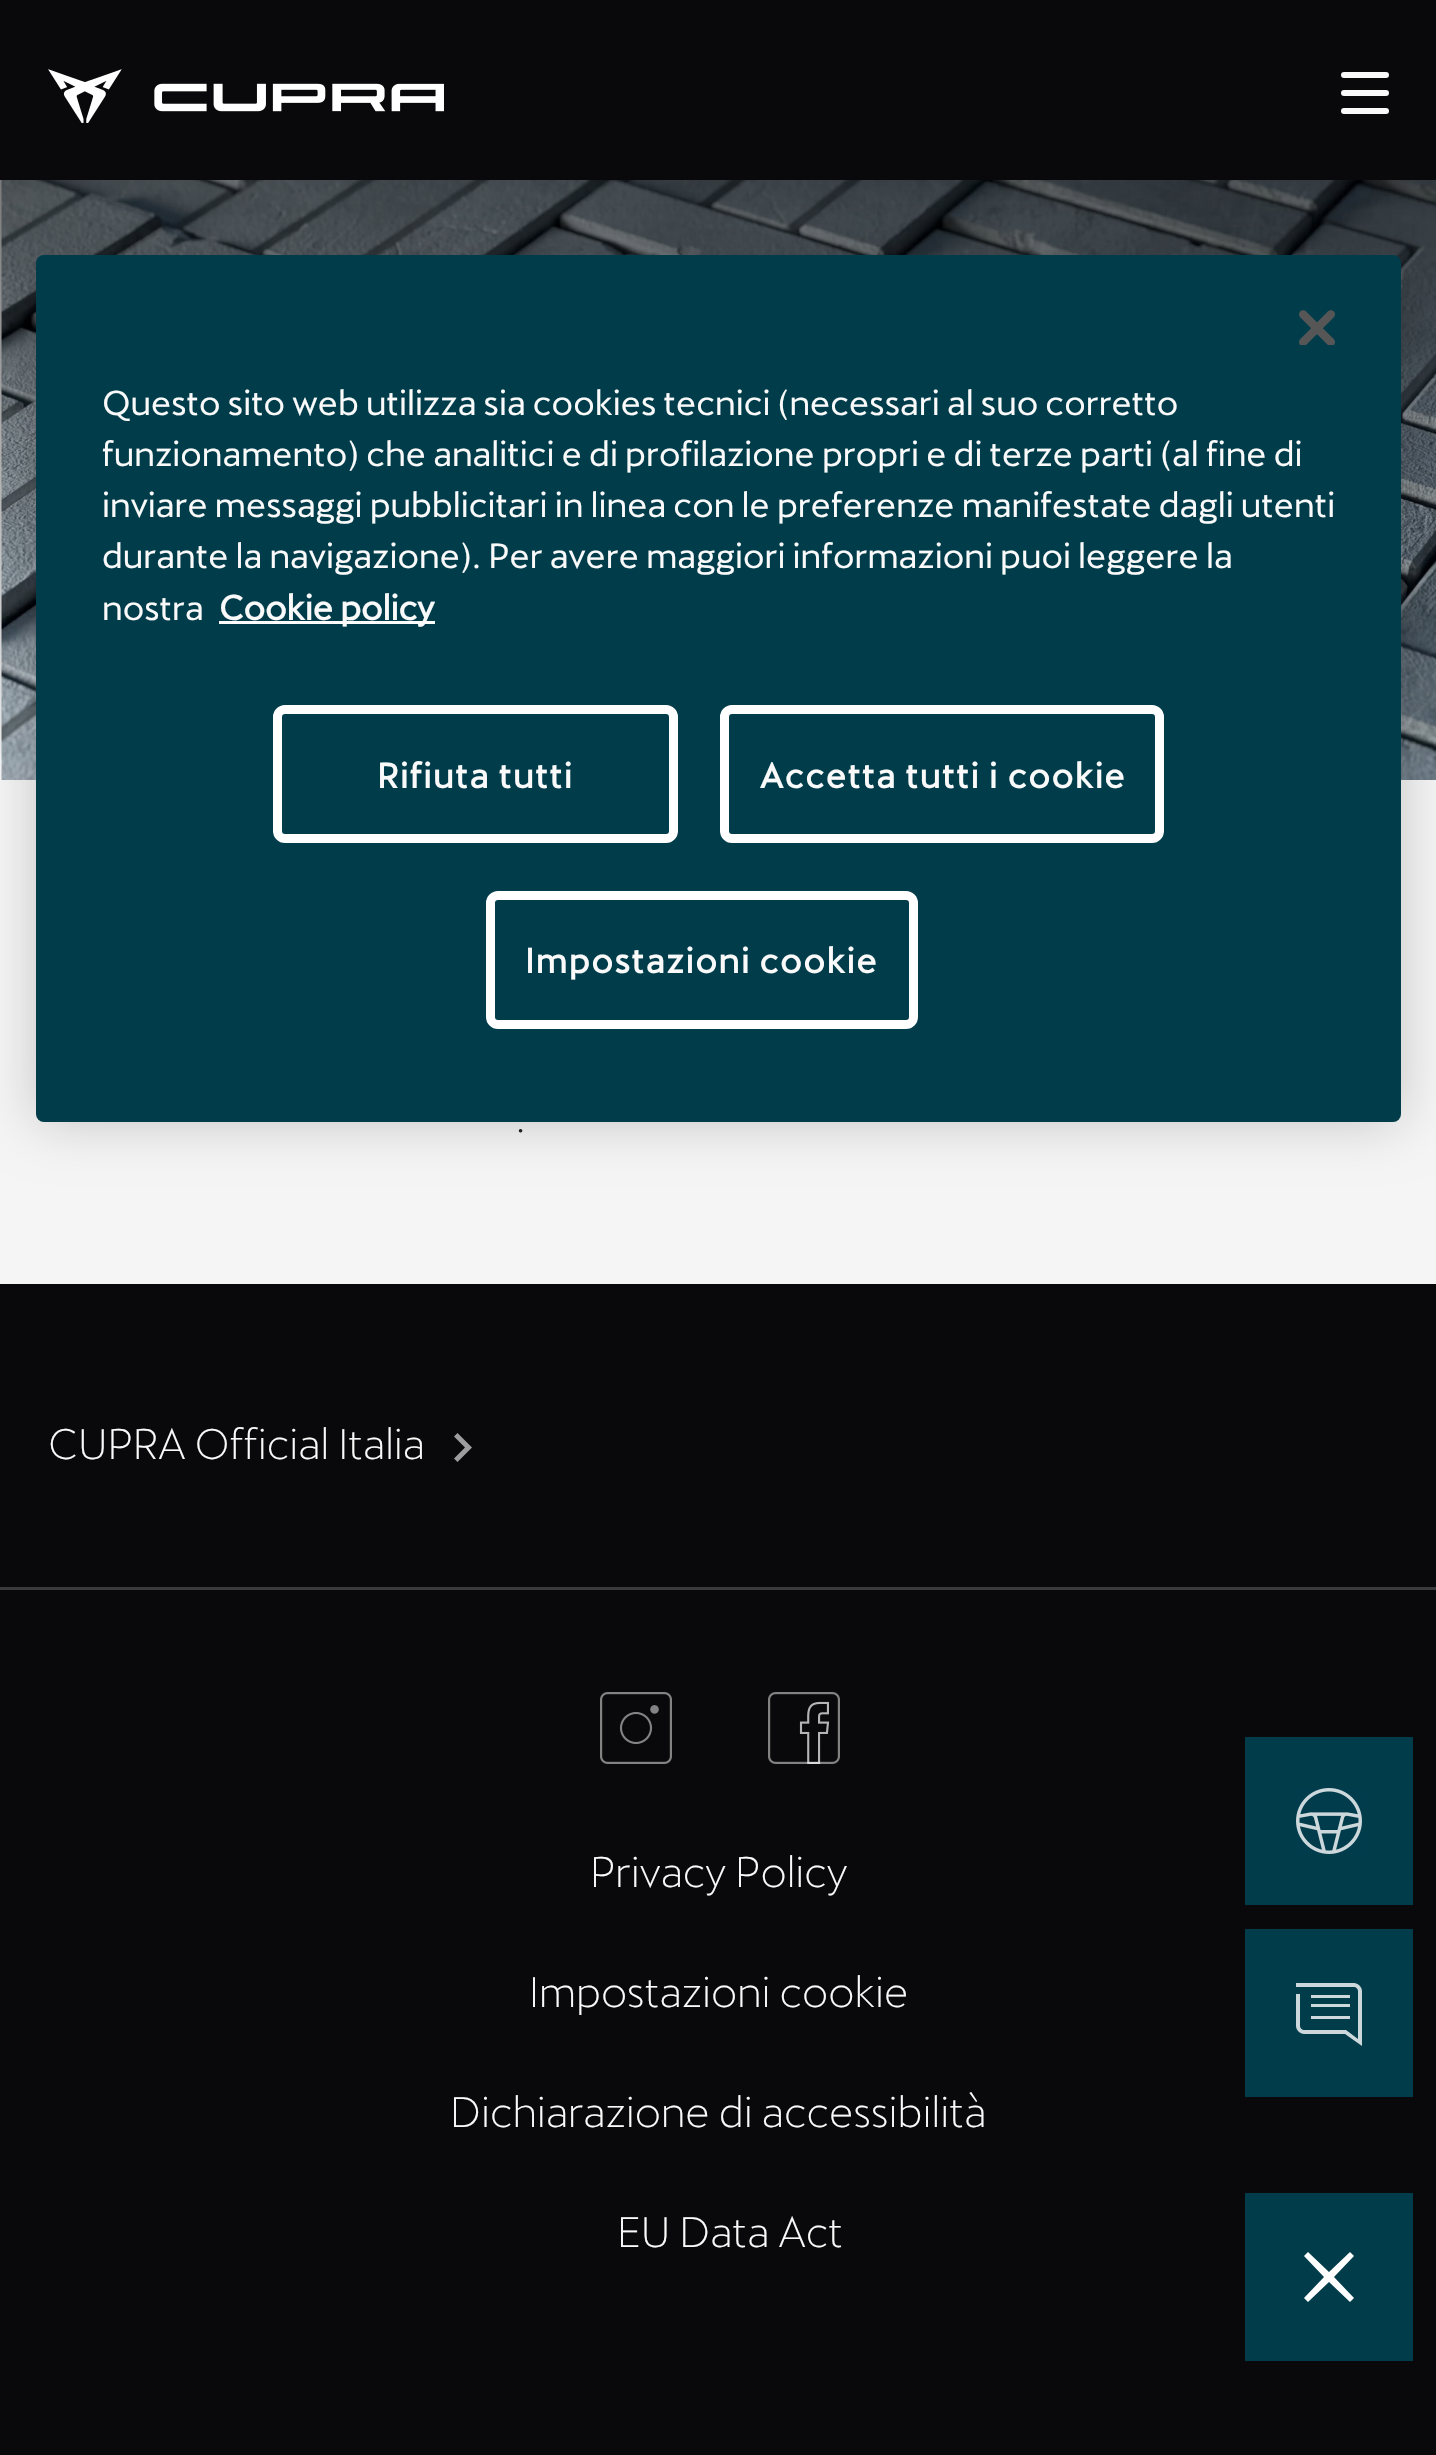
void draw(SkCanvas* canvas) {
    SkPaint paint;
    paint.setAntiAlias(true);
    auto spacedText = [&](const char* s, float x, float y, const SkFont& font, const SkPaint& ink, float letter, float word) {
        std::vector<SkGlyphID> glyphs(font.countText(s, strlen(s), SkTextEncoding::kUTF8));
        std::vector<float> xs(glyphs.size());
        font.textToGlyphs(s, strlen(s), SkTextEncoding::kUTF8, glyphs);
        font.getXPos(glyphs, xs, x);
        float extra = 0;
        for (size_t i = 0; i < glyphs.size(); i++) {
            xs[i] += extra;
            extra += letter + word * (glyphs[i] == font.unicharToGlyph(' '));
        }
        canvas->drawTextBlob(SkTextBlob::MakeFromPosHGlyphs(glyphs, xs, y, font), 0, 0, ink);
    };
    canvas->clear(0xFF09090B);
    canvas->drawImageRect(SkImages::DeferredFromEncodedData(SkData::MakeFromFileName("img1.png")), SkRect::MakeXYWH(48, 69, 396, 54), SkSamplingOptions());
    paint.setColor(0xFFFAFAFA);
    canvas->drawRoundRect(SkRect::MakeXYWH(1341, 72, 48, 6), 3, 3, paint);
    canvas->drawRoundRect(SkRect::MakeXYWH(1341, 90, 48, 6), 3, 3, paint);
    canvas->drawRoundRect(SkRect::MakeXYWH(1341, 108, 48, 6), 3, 3, paint);
    paint.setColor(0xFFF5F5F5);
    canvas->drawRect(SkRect::MakeXYWH(0, 180, 1436, 1104), paint);
    canvas->drawImageRect(SkImages::DeferredFromEncodedData(SkData::MakeFromFileName("img3.png")), SkRect::MakeXYWH(1, 180, 1435, 600), SkSamplingOptions());
    {
        const SkColor colors[] = {0x80000000, 0x00000000};
        const float stops[] = {0, 1};
        const SkPoint ends[] = {{719, 180}, {719, 780}};
        paint.setShader(SkGradientShader::MakeLinear(ends, colors, stops, 2, SkTileMode::kClamp));
        paint.setAlpha(255);
    }
    canvas->drawRect(SkRect::MakeXYWH(0, 180, 1436, 574), paint);
    paint.setShader(nullptr);
    paint.setColor(0x33000000);
    paint.setMaskFilter(SkMaskFilter::MakeBlur(kNormal_SkBlurStyle, 27));
    canvas->drawRoundRect(SkRect::MakeXYWH(36, 255, 1365, 867), 8, 8, paint);
    paint.setMaskFilter(nullptr);
    paint.setColor(0xFF003C4A);
    canvas->drawRoundRect(SkRect::MakeXYWH(36, 255, 1365, 867), 8, 8, paint);
    canvas->drawImageRect(SkImages::DeferredFromEncodedData(SkData::MakeFromFileName("img2.png")), SkRect::MakeXYWH(1299, 310, 36, 35), SkSamplingOptions());
    SkFont font1(fontMgr->matchFamilyStyle("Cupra", SkFontStyle::Normal()), 34.15f);
    font1.setSubpixel(true);
    paint.setColor(0xFFFAFAFA);
    canvas->drawString("Questo sito web utilizza sia cookies tecnici (necessari al suo corretto", 102, 415, font1, paint);
    canvas->drawString("funzionamento) che analitici e di profilazione propri e di terze parti (al fine di", 102, 466, font1, paint);
    canvas->drawString("inviare messaggi pubblicitari in linea con le preferenze manifestate dagli utenti", 102, 517, font1, paint);
    canvas->drawString("durante la navigazione). Per avere maggiori informazioni puoi leggere la", 102, 568, font1, paint);
    canvas->drawString("nostra", 102, 620, font1, paint);
    paint.setColor(0xFFFFFFFF);
    canvas->drawRect(SkRect::MakeXYWH(219, 621, 216, 3), paint);
    SkFont font2(fontMgr->matchFamilyStyle("Cupra", SkFontStyle::Bold()), 34.15f);
    font2.setSubpixel(true);
    paint.setColor(0xFFFAFAFA);
    canvas->drawString("Cookie policy", 219, 620, font2, paint);
    paint.setStyle(SkPaint::kStroke_Style);
    paint.setStrokeWidth(9);
    paint.setColor(0xFFFFFFFF);
    canvas->drawRoundRect(SkRect::MakeXYWH(277.5f, 709.5f, 396, 129), 7.5f, 7.5f, paint);
    paint.setStyle(SkPaint::kFill_Style);
    paint.setColor(0xFFFAFAFA);
    spacedText("Rifiuta tutti", 377, 788, font2, paint, 1.75f, 0);
    paint.setStyle(SkPaint::kStroke_Style);
    paint.setColor(0xFFFFFFFF);
    canvas->drawRoundRect(SkRect::MakeXYWH(724.5f, 709.5f, 435, 129), 7.5f, 7.5f, paint);
    paint.setStyle(SkPaint::kFill_Style);
    paint.setColor(0xFFFAFAFA);
    spacedText("Accetta tutti i cookie", 760, 788, font2, paint, 1.75f, 0);
    paint.setStyle(SkPaint::kStroke_Style);
    paint.setColor(0xFFFFFFFF);
    canvas->drawRoundRect(SkRect::MakeXYWH(490.5f, 895.5f, 423, 129), 7.5f, 7.5f, paint);
    paint.setStyle(SkPaint::kFill_Style);
    paint.setColor(0xFFFAFAFA);
    spacedText("Impostazioni cookie", 525, 973, font2, paint, 1.75f, 0);
    SkFont font3(fontMgr->matchFamilyStyle("Cupra", SkFontStyle(300, SkFontStyle::kNormal_Width, SkFontStyle::kUpright_Slant)), 48);
    font3.setSubpixel(true);
    paint.setColor(0xFF242221);
    canvas->drawString(".", 515, 1132, font3, paint);
    SkFont font4(fontMgr->matchFamilyStyle("Cupra", SkFontStyle(300, SkFontStyle::kNormal_Width, SkFontStyle::kUpright_Slant)), 42);
    font4.setSubpixel(true);
    paint.setColor(0xFFFAFAFA);
    canvas->drawString("CUPRA Official Italia", 48, 1459, font4, paint);
    paint.setColor(0xFF9D9D9D);
    canvas->drawPath(SkPathBuilder(SkPathFillType::kEvenOdd).moveTo(454, 1436.5f).lineTo(465, 1447.5f).lineTo(454, 1458.5f).lineTo(457.5f, 1462).lineTo(472, 1447.5f).lineTo(457.5f, 1433).close().detach(), paint);
    paint.setColor(0xFF3A3A3C);
    canvas->drawRect(SkRect::MakeXYWH(0, 1587, 1436, 3), paint);
    canvas->drawImageRect(SkImages::DeferredFromEncodedData(SkData::MakeFromFileName("img4.png")), SkRect::MakeXYWH(600, 1692, 72, 72), SkSamplingOptions());
    canvas->drawImageRect(SkImages::DeferredFromEncodedData(SkData::MakeFromFileName("img5.png")), SkRect::MakeXYWH(768, 1692, 72, 72), SkSamplingOptions());
    paint.setColor(0xFFFAFAFA);
    canvas->drawString("Privacy Policy", 590, 1887, font4, paint);
    canvas->drawString("Impostazioni cookie", 529, 2007, font4, paint);
    canvas->drawString("Dichiarazione di accessibilità", 450, 2127, font4, paint);
    canvas->drawString("EU Data Act", 617, 2247, font4, paint);
    paint.setColor(0xFF003C4A);
    canvas->drawRect(SkRect::MakeXYWH(1245, 1737, 168, 168), paint);
    canvas->drawImageRect(SkImages::DeferredFromEncodedData(SkData::MakeFromFileName("img6.png")), SkRect::MakeXYWH(1296, 1788, 66, 66), SkSamplingOptions());
    canvas->drawRect(SkRect::MakeXYWH(1245, 1929, 168, 168), paint);
    paint.setColor(0xFFCCD8DB);
    canvas->drawPath(SkPathBuilder().moveTo(1354, 1983).lineTo(1296, 1983).lineTo(1296, 1987).lineTo(1354, 1987).cubicTo(1356, 1987, 1358, 1989, 1358, 1991).lineTo(1358, 2039).lineTo(1346, 2030).lineTo(1304, 2030).cubicTo(1302, 2030, 1300, 2028, 1300, 2026).lineTo(1300, 1994).lineTo(1296, 1994).lineTo(1296, 2026).cubicTo(1296, 2030, 1300, 2034, 1304, 2034).lineTo(1345, 2034).lineTo(1362, 2046).lineTo(1362, 1991).cubicTo(1362, 1987, 1358, 1983, 1354, 1983).close().detach(), paint);
    canvas->drawRect(SkRect::MakeXYWH(1311, 1995, 39, 3), paint);
    canvas->drawRect(SkRect::MakeXYWH(1311, 2004, 39, 3), paint);
    canvas->drawRect(SkRect::MakeXYWH(1311, 2016, 39, 3), paint);
    paint.setColor(0xFF003C4A);
    canvas->drawRect(SkRect::MakeXYWH(1245, 2193, 168, 168), paint);
    paint.setColor(0xFFFFFFFF);
    canvas->drawPath(SkPathBuilder(SkPathFillType::kEvenOdd).moveTo(1329, 2272).lineTo(1350, 2252).lineTo(1354, 2256).lineTo(1334, 2277).lineTo(1354, 2298).lineTo(1350, 2302).lineTo(1329, 2282).lineTo(1308, 2302).lineTo(1304, 2298).lineTo(1324, 2277).lineTo(1304, 2256).lineTo(1308, 2252).close().detach(), paint);
}
